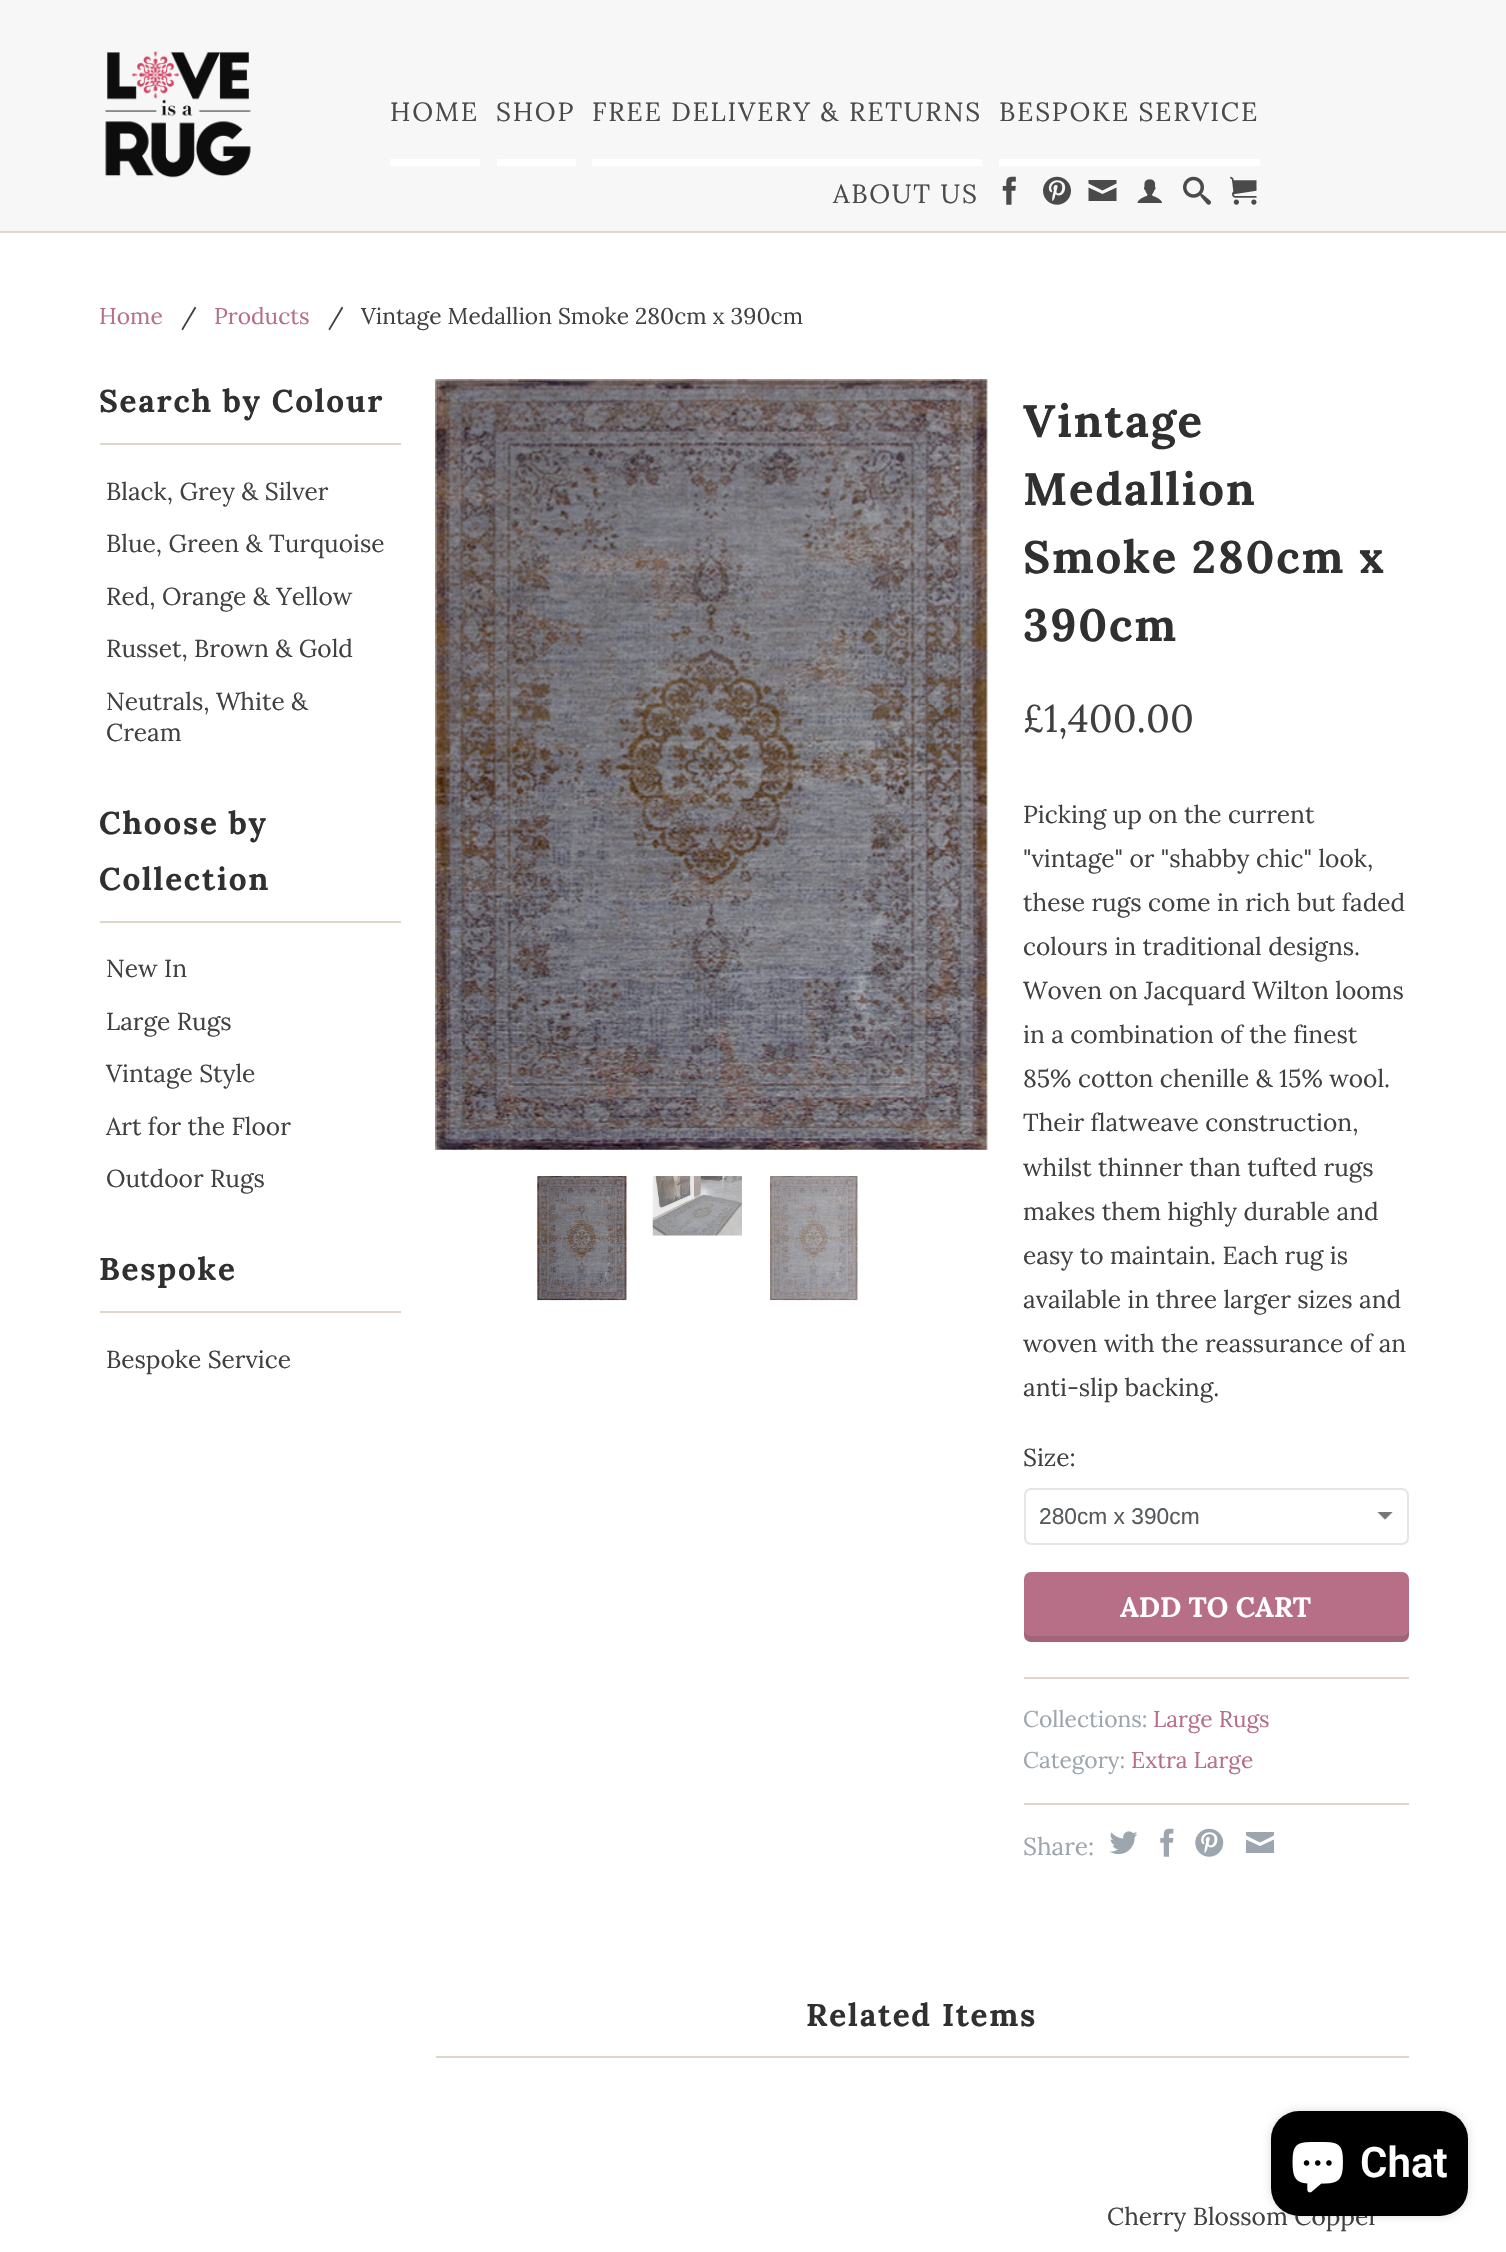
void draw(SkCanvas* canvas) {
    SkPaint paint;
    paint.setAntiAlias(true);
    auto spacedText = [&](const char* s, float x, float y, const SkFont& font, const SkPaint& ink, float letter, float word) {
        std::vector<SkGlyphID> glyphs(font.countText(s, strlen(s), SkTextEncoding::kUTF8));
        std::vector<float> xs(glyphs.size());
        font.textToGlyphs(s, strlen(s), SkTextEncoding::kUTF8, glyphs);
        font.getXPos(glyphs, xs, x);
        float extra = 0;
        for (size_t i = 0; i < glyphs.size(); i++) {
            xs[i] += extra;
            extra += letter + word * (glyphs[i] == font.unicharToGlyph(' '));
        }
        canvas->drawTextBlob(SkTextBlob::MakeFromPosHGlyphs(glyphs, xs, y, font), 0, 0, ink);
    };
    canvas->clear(0xFFFFFFFF);
    paint.setColor(0xFFF7F7F7);
    canvas->drawRect(SkRect::MakeXYWH(0, 0, 1506, 231), paint);
    paint.setColor(0xFFE0D8CA);
    canvas->drawRect(SkRect::MakeXYWH(0, 231, 1506, 2), paint);
    canvas->drawImageRect(SkImages::DeferredFromEncodedData(SkData::MakeFromFileName("img1.png")), SkRect::MakeXYWH(105, 51, 146, 127), SkSamplingOptions());
    SkFont font1(fontMgr->matchFamilyStyle("Lora", SkFontStyle::Normal()), 26.25f);
    font1.setSubpixel(true);
    paint.setColor(0xFF4A4A4A);
    spacedText("HOME", 390, 121, font1, paint, 1.75f, 0);
    paint.setColor(0xFFFFFFFF);
    canvas->drawRect(SkRect::MakeXYWH(390, 159, 90, 7), paint);
    paint.setColor(0xFF4A4A4A);
    spacedText("SHOP", 496, 121, font1, paint, 1.75f, 0);
    paint.setColor(0xFFFFFFFF);
    canvas->drawRect(SkRect::MakeXYWH(497, 159, 79, 7), paint);
    paint.setColor(0xFF4A4A4A);
    spacedText("FREE DELIVERY & RETURNS", 592, 121, font1, paint, 1.75f, 0);
    paint.setColor(0xFFFFFFFF);
    canvas->drawRect(SkRect::MakeXYWH(592, 159, 390, 7), paint);
    paint.setColor(0xFF4A4A4A);
    spacedText("BESPOKE SERVICE", 999, 121, font1, paint, 1.75f, 0);
    paint.setColor(0xFFFFFFFF);
    canvas->drawRect(SkRect::MakeXYWH(999, 159, 261, 7), paint);
    paint.setColor(0xFF4A4A4A);
    spacedText("ABOUT US", 833, 203, font1, paint, 1.75f, 0);
    canvas->drawImageRect(SkImages::DeferredFromEncodedData(SkData::MakeFromFileName("img2.png")), SkRect::MakeXYWH(1002, 176, 14, 29), SkSamplingOptions());
    canvas->drawImageRect(SkImages::DeferredFromEncodedData(SkData::MakeFromFileName("img3.png")), SkRect::MakeXYWH(1043, 176, 28, 29), SkSamplingOptions());
    canvas->drawPath(SkPathBuilder().moveTo(1102.5f, 190.5f).lineTo(1088.5f, 183.5f).lineTo(1088.5f, 180).lineTo(1116.5f, 180).lineTo(1116.5f, 183.5f).close().moveTo(1102.5f, 194).lineTo(1116.5f, 187.5f).lineTo(1116.5f, 201).lineTo(1088.5f, 201).lineTo(1088.5f, 187.5f).close().detach(), paint);
    canvas->drawImageRect(SkImages::DeferredFromEncodedData(SkData::MakeFromFileName("img4.png")), SkRect::MakeXYWH(1137, 179, 25, 24), SkSamplingOptions());
    canvas->drawImageRect(SkImages::DeferredFromEncodedData(SkData::MakeFromFileName("img5.png")), SkRect::MakeXYWH(1183, 176, 28, 29), SkSamplingOptions());
    canvas->drawImageRect(SkImages::DeferredFromEncodedData(SkData::MakeFromFileName("img6.png")), SkRect::MakeXYWH(1230, 176, 27, 29), SkSamplingOptions());
    SkFont font2(fontMgr->matchFamilyStyle("Lora", SkFontStyle::Normal()), 22.75f);
    font2.setSubpixel(true);
    paint.setColor(0xFFB66F86);
    canvas->drawString("Home", 99, 324, font2, paint);
    paint.setColor(0xFF404040);
    canvas->drawString("/", 181, 324, font2, paint);
    paint.setColor(0xFFB66F86);
    canvas->drawString("Products", 214, 324, font2, paint);
    paint.setColor(0xFF404040);
    canvas->drawString("/", 328, 324, font2, paint);
    canvas->drawString("Vintage Medallion Smoke 280cm x 390cm", 361, 324, font2, paint);
    paint.setColor(0xFFDED6C7);
    canvas->drawRect(SkRect::MakeXYWH(100, 443, 301, 2), paint);
    SkFont font3(fontMgr->matchFamilyStyle("Lora", SkFontStyle::Bold()), 31.5f);
    font3.setSubpixel(true);
    paint.setColor(0xFF303030);
    spacedText("Search by Colour", 99, 412, font3, paint, 1.75f, 0);
    SkFont font4(fontMgr->matchFamilyStyle("Lora", SkFontStyle::Normal()), 24.5f);
    font4.setSubpixel(true);
    paint.setColor(0xFF404040);
    canvas->drawString("Black, Grey & Silver", 106, 500, font4, paint);
    canvas->drawString("Blue, Green & Turquoise", 106, 552, font4, paint);
    canvas->drawString("Red, Orange & Yellow", 106, 605, font4, paint);
    canvas->drawString("Russet, Brown & Gold", 106, 657, font4, paint);
    canvas->drawString("Neutrals, White &", 106, 710, font4, paint);
    canvas->drawString("Cream", 106, 741, font4, paint);
    paint.setColor(0xFFDED6C7);
    canvas->drawRect(SkRect::MakeXYWH(100, 921, 301, 2), paint);
    paint.setColor(0xFF303030);
    spacedText("Choose by", 99, 834, font3, paint, 1.75f, 0);
    spacedText("Collection", 99, 890, font3, paint, 1.75f, 0);
    paint.setColor(0xFF404040);
    canvas->drawString("New In", 106, 977, font4, paint);
    canvas->drawString("Large Rugs", 106, 1030, font4, paint);
    canvas->drawString("Vintage Style", 106, 1082, font4, paint);
    canvas->drawString("Art for the Floor", 106, 1135, font4, paint);
    canvas->drawString("Outdoor Rugs", 106, 1187, font4, paint);
    paint.setColor(0xFFDED6C7);
    canvas->drawRect(SkRect::MakeXYWH(100, 1311, 301, 2), paint);
    paint.setColor(0xFF303030);
    spacedText("Bespoke", 99, 1280, font3, paint, 1.75f, 0);
    paint.setColor(0xFF404040);
    canvas->drawString("Bespoke Service", 106, 1368, font4, paint);
    canvas->drawImageRect(SkImages::DeferredFromEncodedData(SkData::MakeFromFileName("img7.png")), SkRect::MakeXYWH(435, 379, 553, 771), SkSamplingOptions());
    canvas->drawImageRect(SkImages::DeferredFromEncodedData(SkData::MakeFromFileName("img8.png")), SkRect::MakeXYWH(537, 1176, 90, 125), SkSamplingOptions());
    canvas->drawImageRect(SkImages::DeferredFromEncodedData(SkData::MakeFromFileName("img9.png")), SkRect::MakeXYWH(652, 1176, 90, 60), SkSamplingOptions());
    canvas->drawImageRect(SkImages::DeferredFromEncodedData(SkData::MakeFromFileName("img10.png")), SkRect::MakeXYWH(770, 1176, 88, 125), SkSamplingOptions());
    SkFont font5(fontMgr->matchFamilyStyle("Lora", SkFontStyle::Bold()), 45.5f);
    font5.setSubpixel(true);
    paint.setColor(0xFF303030);
    spacedText("Vintage", 1023, 437, font5, paint, 1.75f, 0);
    spacedText("Medallion", 1023, 505, font5, paint, 1.75f, 0);
    spacedText("Smoke 280cm x", 1023, 573, font5, paint, 1.75f, 0);
    spacedText("390cm", 1023, 641, font5, paint, 1.75f, 0);
    SkFont font6(fontMgr->matchFamilyStyle("Lora", SkFontStyle::Normal()), 38.5f);
    font6.setSubpixel(true);
    paint.setColor(0xFF404040);
    canvas->drawString("£1,400.00", 1023, 732, font6, paint);
    canvas->drawString("Picking up on the current", 1023, 823, font4, paint);
    canvas->drawString("\"vintage\" or \"shabby chic\" look,", 1023, 867, font4, paint);
    canvas->drawString("these rugs come in rich but faded", 1023, 911, font4, paint);
    canvas->drawString("colours in traditional designs.", 1023, 955, font4, paint);
    canvas->drawString("Woven on Jacquard Wilton looms", 1023, 999, font4, paint);
    canvas->drawString("in a combination of the finest", 1023, 1043, font4, paint);
    canvas->drawString("85% cotton chenille & 15% wool.", 1023, 1087, font4, paint);
    canvas->drawString("Their flatweave construction,", 1023, 1131, font4, paint);
    canvas->drawString("whilst thinner than tufted rugs", 1023, 1176, font4, paint);
    canvas->drawString("makes them highly durable and", 1023, 1220, font4, paint);
    canvas->drawString("easy to maintain. Each rug is", 1023, 1264, font4, paint);
    canvas->drawString("available in three larger sizes and", 1023, 1308, font4, paint);
    canvas->drawString("woven with the reassurance of an", 1023, 1352, font4, paint);
    canvas->drawString("anti-slip backing.", 1023, 1396, font4, paint);
    canvas->drawString("Size:", 1023, 1466, font4, paint);
    canvas->drawImageRect(SkImages::DeferredFromEncodedData(SkData::MakeFromFileName("img11.png")), SkRect::MakeXYWH(1377, 1512, 16, 8), SkSamplingOptions());
    paint.setStyle(SkPaint::kStroke_Style);
    paint.setStrokeWidth(2);
    paint.setColor(0xFFE5E5E5);
    canvas->drawRoundRect(SkRect::MakeXYWH(1025, 1489, 383, 55), 6, 6, paint);
    SkFont font7(fontMgr->matchFamilyStyle("Liberation Sans", SkFontStyle::Normal()), 22.75f);
    font7.setSubpixel(true);
    paint.setStyle(SkPaint::kFill_Style);
    paint.setColor(0xFF565A5C);
    canvas->drawString("280cm x 390cm", 1039, 1524, font7, paint);
    paint.setColor(0xFFB66F86);
    canvas->drawRoundRect(SkRect::MakeXYWH(1024, 1572, 385, 70), 7, 7, paint);
    paint.setColor(0x1A000000);
    canvas->drawPath(SkPathBuilder().moveTo(1024, 1629).lineTo(1024, 1635).cubicTo(1024, 1639, 1027, 1642, 1031, 1642).lineTo(1402, 1642).cubicTo(1406, 1642, 1409, 1639, 1409, 1635).lineTo(1409, 1629).cubicTo(1409, 1633, 1406, 1636, 1402, 1636).lineTo(1031, 1636).cubicTo(1027, 1636, 1024, 1633, 1024, 1629).close().detach(), paint);
    SkFont font8(fontMgr->matchFamilyStyle("Lora", SkFontStyle::Bold()), 28);
    font8.setSubpixel(true);
    paint.setColor(0xFFFFFFFF);
    canvas->drawString("ADD TO CART", 1120, 1617, font8, paint);
    paint.setColor(0xFFDED6C7);
    canvas->drawRect(SkRect::MakeXYWH(1024, 1677, 385, 2), paint);
    paint.setColor(0xFF9DA6AE);
    canvas->drawString("Collections:", 1023, 1727, font2, paint);
    paint.setColor(0xFFB66F86);
    canvas->drawString("Large Rugs", 1153, 1727, font2, paint);
    paint.setColor(0xFF9DA6AE);
    canvas->drawString("Category:", 1023, 1768, font2, paint);
    paint.setColor(0xFFB66F86);
    canvas->drawString("Extra Large", 1131, 1768, font2, paint);
    paint.setColor(0xFFDED6C7);
    canvas->drawRect(SkRect::MakeXYWH(1024, 1803, 385, 2), paint);
    paint.setColor(0xFF9DA6AE);
    canvas->drawString("Share:", 1023, 1855, font4, paint);
    canvas->drawPath(SkPathBuilder().moveTo(1260, 1842.5f).lineTo(1246, 1835.5f).lineTo(1246, 1832).lineTo(1274, 1832).lineTo(1274, 1835.5f).close().moveTo(1260, 1846).lineTo(1274, 1839.5f).lineTo(1274, 1853).lineTo(1246, 1853).lineTo(1246, 1839.5f).close().detach(), paint);
    canvas->drawImageRect(SkImages::DeferredFromEncodedData(SkData::MakeFromFileName("img12.png")), SkRect::MakeXYWH(1109, 1831, 29, 24), SkSamplingOptions());
    canvas->drawImageRect(SkImages::DeferredFromEncodedData(SkData::MakeFromFileName("img13.png")), SkRect::MakeXYWH(1160, 1828, 14, 29), SkSamplingOptions());
    canvas->drawImageRect(SkImages::DeferredFromEncodedData(SkData::MakeFromFileName("img14.png")), SkRect::MakeXYWH(1195, 1828, 29, 29), SkSamplingOptions());
    paint.setColor(0xFFDED6C7);
    canvas->drawRect(SkRect::MakeXYWH(436, 2056, 973, 2), paint);
    paint.setColor(0xFF303030);
    spacedText("Related Items", 806, 2026, font3, paint, 1.75f, 0);
    paint.setColor(0xFF404040);
    canvas->drawString("Cherry Blossom Copper", 1107, 2225, font4, paint);
    paint.setColor(0x26000000);
    paint.setMaskFilter(SkMaskFilter::MakeBlur(kNormal_SkBlurStyle, 4.5f));
    canvas->drawRoundRect(SkRect::MakeXYWH(1271, 2111, 197, 105), 28, 28, paint);
    paint.setMaskFilter(nullptr);
    paint.setColor(0xFF000000);
    canvas->drawRoundRect(SkRect::MakeXYWH(1271, 2111, 197, 105), 28, 28, paint);
    canvas->drawImageRect(SkImages::DeferredFromEncodedData(SkData::MakeFromFileName("img15.png")), SkRect::MakeXYWH(1292, 2142, 51, 51), SkSamplingOptions());
    SkFont font9(fontMgr->matchFamilyStyle("Roboto", SkFontStyle(600, SkFontStyle::kNormal_Width, SkFontStyle::kUpright_Slant)), 42);
    font9.setSubpixel(true);
    paint.setColor(0xFFFFFFFF);
    canvas->drawString("Chat", 1360, 2177, font9, paint);
}
